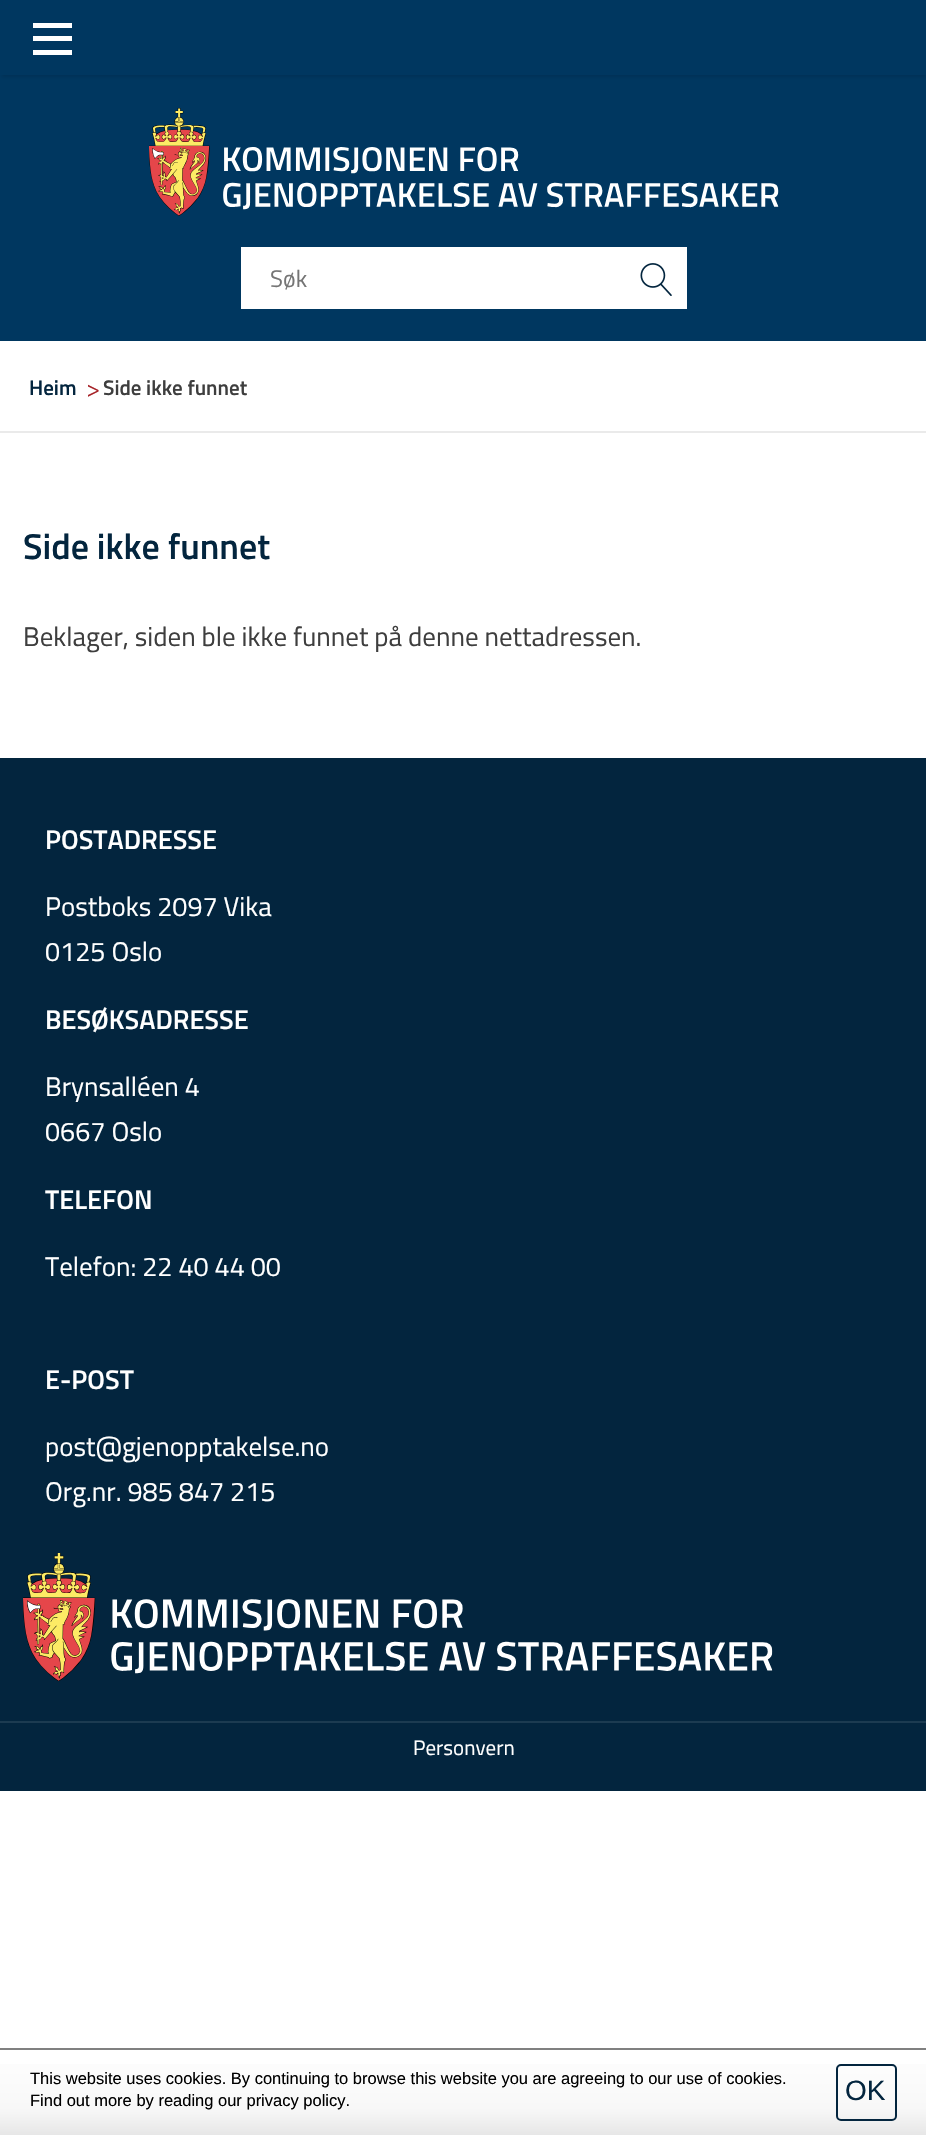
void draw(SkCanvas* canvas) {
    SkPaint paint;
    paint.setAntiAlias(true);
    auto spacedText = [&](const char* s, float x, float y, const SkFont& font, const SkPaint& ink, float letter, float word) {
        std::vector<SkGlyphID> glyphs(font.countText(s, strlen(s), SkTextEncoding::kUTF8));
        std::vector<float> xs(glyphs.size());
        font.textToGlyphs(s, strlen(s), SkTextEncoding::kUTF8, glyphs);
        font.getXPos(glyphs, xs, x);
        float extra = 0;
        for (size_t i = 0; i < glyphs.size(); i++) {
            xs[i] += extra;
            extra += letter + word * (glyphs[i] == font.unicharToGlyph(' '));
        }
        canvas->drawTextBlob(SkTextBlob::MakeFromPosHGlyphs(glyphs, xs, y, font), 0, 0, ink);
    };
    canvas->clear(0xFFFFFFFF);
    paint.setColor(0xFF003760);
    canvas->drawRect(SkRect::MakeXYWH(0, 75, 926, 266), paint);
    paint.setColor(0x1A000000);
    paint.setMaskFilter(SkMaskFilter::MakeBlur(kNormal_SkBlurStyle, 1.5f));
    canvas->drawRect(SkRect::MakeXYWH(2, 5, 924, 72), paint);
    paint.setMaskFilter(nullptr);
    paint.setColor(0xFF003760);
    canvas->drawRect(SkRect::MakeXYWH(0, 0, 926, 75), paint);
    paint.setColor(0xFFFFFFFF);
    canvas->drawRect(SkRect::MakeXYWH(33, 36, 39, 5), paint);
    canvas->drawRect(SkRect::MakeXYWH(33, 23, 39, 5), paint);
    canvas->drawRect(SkRect::MakeXYWH(33, 50, 39, 5), paint);
    canvas->drawImageRect(SkImages::DeferredFromEncodedData(SkData::MakeFromFileName("img1.png")), SkRect::MakeXYWH(149, 108, 630, 108), SkSamplingOptions());
    canvas->drawRect(SkRect::MakeXYWH(241, 247, 446, 62), paint);
    SkFont font1(fontMgr->matchFamilyStyle("Titillium Web", SkFontStyle::Normal()), 24);
    font1.setSubpixel(true);
    paint.setColor(0xFF757575);
    canvas->drawString("Søk", 270, 287, font1, paint);
    canvas->drawImageRect(SkImages::DeferredFromEncodedData(SkData::MakeFromFileName("img2.png")), SkRect::MakeXYWH(640, 263, 32, 33), SkSamplingOptions());
    paint.setColor(0xFFEAEAEA);
    canvas->drawRect(SkRect::MakeXYWH(0, 431, 926, 2), paint);
    SkFont font2(fontMgr->matchFamilyStyle("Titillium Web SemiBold", SkFontStyle(600, SkFontStyle::kNormal_Width, SkFontStyle::kUpright_Slant)), 21);
    font2.setSubpixel(true);
    paint.setColor(0xFF03253E);
    canvas->drawString("Heim", 29, 395, font2, paint);
    SkFont font3(fontMgr->matchFamilyStyle("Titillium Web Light", SkFontStyle(300, SkFontStyle::kNormal_Width, SkFontStyle::kUpright_Slant)), 25);
    font3.setSubpixel(true);
    paint.setColor(0xFFA72328);
    spacedText(">", 86, 397, font3, paint, -6, 0);
    paint.setColor(0xFF3E3E3E);
    canvas->drawString("Side ikke funnet", 103, 395, font2, paint);
    SkFont font4(fontMgr->matchFamilyStyle("Titillium Web SemiBold", SkFontStyle(600, SkFontStyle::kNormal_Width, SkFontStyle::kUpright_Slant)), 36);
    font4.setSubpixel(true);
    paint.setColor(0xFF03253E);
    canvas->drawString("Side ikke funnet", 23, 559, font4, paint);
    SkFont font5(fontMgr->matchFamilyStyle("Titillium Web", SkFontStyle::Normal()), 27);
    font5.setSubpixel(true);
    paint.setColor(0xFF3E3E3E);
    canvas->drawString("Beklager, siden ble ikke funnet på denne nettadressen.", 23, 646, font5, paint);
    paint.setColor(0xFF03253E);
    canvas->drawRect(SkRect::MakeXYWH(0, 758, 926, 1033), paint);
    SkFont font6(fontMgr->matchFamilyStyle("Titillium Web SemiBold", SkFontStyle(600, SkFontStyle::kNormal_Width, SkFontStyle::kUpright_Slant)), 27);
    font6.setSubpixel(true);
    paint.setColor(0xFFFFFFFF);
    canvas->drawString("POSTADRESSE", 45, 849, font6, paint);
    canvas->drawString("Postboks 2097 Vika", 45, 916, font5, paint);
    canvas->drawString("0125 Oslo", 45, 961, font5, paint);
    canvas->drawString("BESØKSADRESSE", 45, 1029, font6, paint);
    canvas->drawString("Brynsalléen 4", 45, 1096, font5, paint);
    canvas->drawString("0667 Oslo", 45, 1141, font5, paint);
    canvas->drawString("TELEFON", 45, 1209, font6, paint);
    canvas->drawString("Telefon: 22 40 44 00", 45, 1276, font5, paint);
    canvas->drawString("E-POST", 45, 1389, font6, paint);
    canvas->drawString("post@gjenopptakelse.no", 45, 1456, font5, paint);
    canvas->drawString("Org.nr. 985 847 215", 45, 1501, font5, paint);
    canvas->drawImageRect(SkImages::DeferredFromEncodedData(SkData::MakeFromFileName("img3.png")), SkRect::MakeXYWH(23, 1553, 750, 129), SkSamplingOptions());
    paint.setColor(0xFF1C3B51);
    canvas->drawRect(SkRect::MakeXYWH(0, 1721, 926, 2), paint);
    SkFont font7(fontMgr->matchFamilyStyle("Titillium Web", SkFontStyle::Normal()), 21);
    font7.setSubpixel(true);
    paint.setColor(0xFFFFFFFF);
    canvas->drawString("Personvern", 413, 1755, font7, paint);
    {
        const SkColor colors[] = {0xFFFEFEFE, 0xFFF8F8F8, 0xFFE6E6E6};
        const float stops[] = {0, 0.68f, 1};
        const SkPoint ends[] = {{464, 2049}, {464, 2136}};
        paint.setShader(SkGradientShader::MakeLinear(ends, colors, stops, 3, SkTileMode::kClamp));
        paint.setAlpha(255);
    }
    canvas->drawRect(SkRect::MakeXYWH(0, 2064, 926, 71), paint);
    paint.setShader(nullptr);
    paint.setColor(0xFF808080);
    canvas->drawRect(SkRect::MakeXYWH(0, 2048, 926, 2), paint);
    SkFont font8(fontMgr->matchFamilyStyle("Liberation Sans", SkFontStyle::Normal()), 16.5f);
    font8.setSubpixel(true);
    paint.setColor(0xFF000000);
    canvas->drawString("This website uses cookies. By continuing to browse this website you are agreeing to our use of cookies.", 30, 2084, font8, paint);
    canvas->drawString("Find out more by reading our privacy policy.", 30, 2106, font8, paint);
    paint.setStyle(SkPaint::kStroke_Style);
    paint.setStrokeWidth(2);
    paint.setColor(0xFF03253E);
    canvas->drawRoundRect(SkRect::MakeXYWH(837, 2065, 59, 55), 4, 4, paint);
    SkFont font9(fontMgr->matchFamilyStyle("Liberation Sans", SkFontStyle::Normal()), 28);
    font9.setSubpixel(true);
    paint.setStyle(SkPaint::kFill_Style);
    canvas->drawString("OK", 845, 2100, font9, paint);
}
